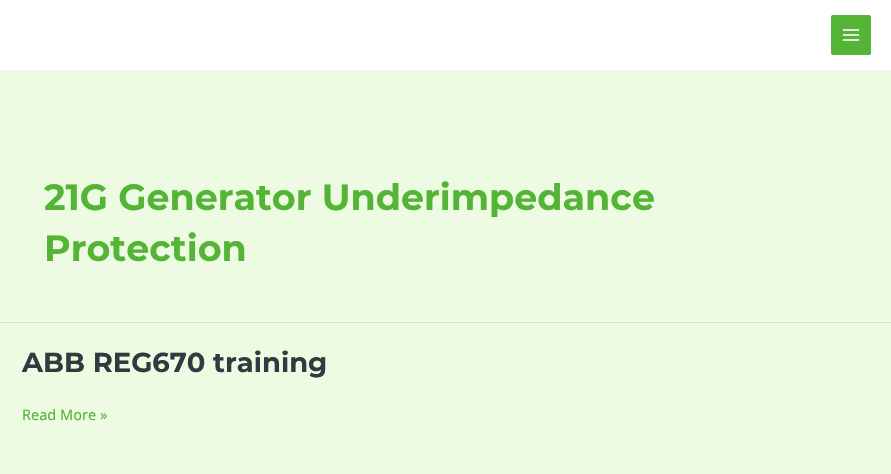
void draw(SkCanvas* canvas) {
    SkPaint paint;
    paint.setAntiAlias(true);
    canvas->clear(0xFFEDFBE2);
    paint.setColor(0xFFFFFFFF);
    canvas->drawRect(SkRect::MakeXYWH(0, 0, 891, 70), paint);
    paint.setColor(0xFF54B435);
    canvas->drawRoundRect(SkRect::MakeXYWH(831, 15, 40, 40), 2, 2, paint);
    canvas->drawImageRect(SkImages::DeferredFromEncodedData(SkData::MakeFromFileName("img1.png")), SkRect::MakeXYWH(842, 29, 18, 12), SkSamplingOptions());
    paint.setColor(0xFFDDDDDD);
    canvas->drawRect(SkRect::MakeXYWH(0, 322, 891, 1), paint);
    SkFont font1(fontMgr->matchFamilyStyle("Montserrat", SkFontStyle(100, SkFontStyle::kNormal_Width, SkFontStyle::kUpright_Slant)), 36.5f);
    font1.setSubpixel(true);
    paint.setColor(0xFF54B435);
    canvas->drawString("21G Generator Underimpedance", 44, 210, font1, paint);
    canvas->drawString("Protection", 44, 261, font1, paint);
    SkFont font2(fontMgr->matchFamilyStyle("Montserrat", SkFontStyle(100, SkFontStyle::kNormal_Width, SkFontStyle::kUpright_Slant)), 27.4f);
    font2.setSubpixel(true);
    paint.setColor(0xFF2F3B40);
    canvas->drawString("ABB REG670 training", 22, 372, font2, paint);
    SkFont font3(fontMgr->matchFamilyStyle("Noto Sans", SkFontStyle::Normal()), 14.5f);
    font3.setSubpixel(true);
    paint.setColor(0xFF54B435);
    canvas->drawString("Read More »", 22, 420, font3, paint);
}
